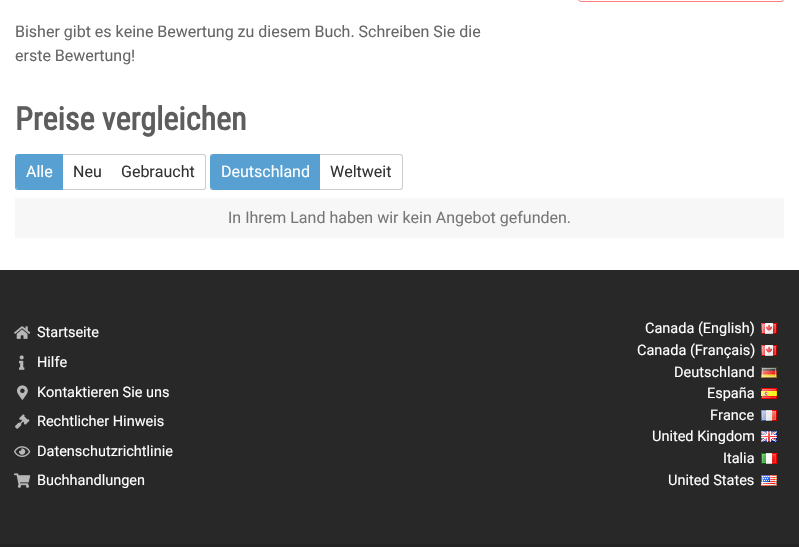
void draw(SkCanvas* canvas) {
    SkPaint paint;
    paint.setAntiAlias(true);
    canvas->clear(0xFFFFFFFF);
    paint.setStyle(SkPaint::kStroke_Style);
    paint.setStrokeWidth(1);
    paint.setColor(0xFFFF7D7D);
    canvas->drawRoundRect(SkRect::MakeXYWH(578.5f, -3.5f, 205, 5), 2.5f, 2.5f, paint);
    SkFont font1(fontMgr->matchFamilyStyle("Roboto", SkFontStyle::Normal()), 16);
    font1.setSubpixel(true);
    paint.setStyle(SkPaint::kFill_Style);
    paint.setColor(0xFF666666);
    canvas->drawString("Bisher gibt es keine Bewertung zu diesem Buch. Schreiben Sie die", 15, 37, font1, paint);
    canvas->drawString("erste Bewertung!", 15, 61, font1, paint);
    SkFont font2(fontMgr->matchFamilyStyle("Roboto Condensed", SkFontStyle::Bold()), 32);
    font2.setSubpixel(true);
    paint.setColor(0xFF5D5D5D);
    canvas->drawString("Preise vergleichen", 15, 130, font2, paint);
    paint.setColor(0xFF589FD2);
    canvas->drawPath(SkPathBuilder().moveTo(18, 155).lineTo(63, 155).lineTo(63, 189).lineTo(18, 189).cubicTo(17, 189, 16, 188, 16, 187).lineTo(16, 157).cubicTo(16, 156, 17, 155, 18, 155).close().detach(), paint);
    canvas->drawPath(SkPathBuilder(SkPathFillType::kEvenOdd).moveTo(18, 154).lineTo(63, 154).lineTo(63, 190).lineTo(18, 190).cubicTo(16, 190, 15, 189, 15, 187).lineTo(15, 157).cubicTo(15, 155, 16, 154, 18, 154).close().moveTo(18, 155).lineTo(63, 155).lineTo(63, 189).lineTo(17, 189).lineTo(16, 187).cubicTo(16, 185, 16, 156, 17, 156).close().detach(), paint);
    paint.setColor(0xFFFFFFFF);
    canvas->drawString("Alle", 26, 177, font1, paint);
    paint.setColor(0xFFCCCCCC);
    canvas->drawRect(SkRect::MakeXYWH(63, 154, 48, 1), paint);
    canvas->drawRect(SkRect::MakeXYWH(63, 189, 48, 1), paint);
    paint.setColor(0xFF333333);
    canvas->drawString("Neu", 73, 177, font1, paint);
    paint.setColor(0xFFCCCCCC);
    canvas->drawPath(SkPathBuilder(SkPathFillType::kEvenOdd).moveTo(111, 154).lineTo(203, 154).cubicTo(205, 154, 206, 155, 206, 157).lineTo(206, 187).cubicTo(206, 189, 205, 190, 203, 190).lineTo(111, 190).close().moveTo(111, 155).lineTo(203, 155).cubicTo(204, 155, 205, 156, 205, 157).lineTo(205, 187).cubicTo(205, 188, 204, 189, 203, 189).lineTo(111, 189).close().detach(), paint);
    paint.setColor(0xFF333333);
    canvas->drawString("Gebraucht", 121, 177, font1, paint);
    paint.setColor(0xFF589FD2);
    canvas->drawPath(SkPathBuilder().moveTo(213, 155).lineTo(320, 155).lineTo(320, 189).lineTo(213, 189).cubicTo(212, 189, 211, 188, 211, 187).lineTo(211, 157).cubicTo(211, 156, 212, 155, 213, 155).close().detach(), paint);
    canvas->drawPath(SkPathBuilder(SkPathFillType::kEvenOdd).moveTo(213, 154).lineTo(320, 154).lineTo(320, 190).lineTo(213, 190).cubicTo(211, 190, 210, 189, 210, 187).lineTo(210, 157).cubicTo(210, 155, 211, 154, 213, 154).close().moveTo(213, 155).lineTo(320, 155).lineTo(320, 189).lineTo(213, 189).cubicTo(212, 189, 211, 188, 211, 187).lineTo(211, 157).cubicTo(211, 156, 212, 155, 213, 155).close().detach(), paint);
    paint.setColor(0xFFFFFFFF);
    canvas->drawString("Deutschland", 221, 177, font1, paint);
    paint.setColor(0xFFCCCCCC);
    canvas->drawPath(SkPathBuilder(SkPathFillType::kEvenOdd).moveTo(320, 154).lineTo(400, 154).cubicTo(402, 154, 403, 155, 403, 157).lineTo(403, 187).cubicTo(403, 189, 402, 190, 400, 190).lineTo(320, 190).close().moveTo(320, 155).lineTo(400, 155).cubicTo(401, 155, 402, 156, 402, 157).lineTo(402, 187).cubicTo(402, 188, 401, 189, 400, 189).lineTo(320, 189).close().detach(), paint);
    paint.setColor(0xFF333333);
    canvas->drawString("Weltweit", 330, 177, font1, paint);
    paint.setColor(0xFFF7F7F7);
    canvas->drawRect(SkRect::MakeXYWH(15, 198, 769, 40), paint);
    paint.setColor(0xFF777777);
    canvas->drawString("In Ihrem Land haben wir kein Angebot gefunden.", 228, 223, font1, paint);
    paint.setColor(0xFF282828);
    canvas->drawRect(SkRect::MakeXYWH(0, 270, 799, 274), paint);
    canvas->drawImageRect(SkImages::DeferredFromEncodedData(SkData::MakeFromFileName("img1.png")), SkRect::MakeXYWH(14, 326, 17, 13), SkSamplingOptions());
    SkFont font3(fontMgr->matchFamilyStyle("Roboto", SkFontStyle::Normal()), 14.5f);
    font3.setSubpixel(true);
    paint.setColor(0xFFFFFFFF);
    canvas->drawString("Startseite", 37, 337, font3, paint);
    canvas->drawImageRect(SkImages::DeferredFromEncodedData(SkData::MakeFromFileName("img2.png")), SkRect::MakeXYWH(19, 355, 6, 15), SkSamplingOptions());
    canvas->drawString("Hilfe", 37, 367, font3, paint);
    canvas->drawImageRect(SkImages::DeferredFromEncodedData(SkData::MakeFromFileName("img3.png")), SkRect::MakeXYWH(17, 385, 11, 15), SkSamplingOptions());
    canvas->drawString("Kontaktieren Sie uns", 37, 397, font3, paint);
    canvas->drawImageRect(SkImages::DeferredFromEncodedData(SkData::MakeFromFileName("img4.png")), SkRect::MakeXYWH(15, 414, 15, 15), SkSamplingOptions());
    canvas->drawString("Rechtlicher Hinweis", 37, 426, font3, paint);
    canvas->drawImageRect(SkImages::DeferredFromEncodedData(SkData::MakeFromFileName("img5.png")), SkRect::MakeXYWH(14, 446, 17, 11), SkSamplingOptions());
    canvas->drawString("Datenschutzrichtlinie", 37, 456, font3, paint);
    canvas->drawImageRect(SkImages::DeferredFromEncodedData(SkData::MakeFromFileName("img6.png")), SkRect::MakeXYWH(14, 473, 17, 15), SkSamplingOptions());
    canvas->drawString("Buchhandlungen", 37, 485, font3, paint);
    canvas->drawString("Canada (English)", 645, 333, font3, paint);
    canvas->drawImageRect(SkImages::DeferredFromEncodedData(SkData::MakeFromFileName("img7.png")), SkRect::MakeXYWH(761, 323, 16, 11), SkSamplingOptions());
    canvas->drawString("Canada (Français)", 637, 355, font3, paint);
    canvas->drawImageRect(SkImages::DeferredFromEncodedData(SkData::MakeFromFileName("img7.png")), SkRect::MakeXYWH(761, 345, 16, 11), SkSamplingOptions());
    canvas->drawString("Deutschland", 674, 377, font3, paint);
    canvas->drawImageRect(SkImages::DeferredFromEncodedData(SkData::MakeFromFileName("img8.png")), SkRect::MakeXYWH(761, 367, 16, 11), SkSamplingOptions());
    canvas->drawString("España", 707, 398, font3, paint);
    canvas->drawImageRect(SkImages::DeferredFromEncodedData(SkData::MakeFromFileName("img9.png")), SkRect::MakeXYWH(761, 388, 16, 11), SkSamplingOptions());
    canvas->drawString("France", 710, 420, font3, paint);
    canvas->drawImageRect(SkImages::DeferredFromEncodedData(SkData::MakeFromFileName("img10.png")), SkRect::MakeXYWH(761, 410, 16, 11), SkSamplingOptions());
    canvas->drawString("United Kingdom", 652, 441, font3, paint);
    canvas->drawImageRect(SkImages::DeferredFromEncodedData(SkData::MakeFromFileName("img11.png")), SkRect::MakeXYWH(761, 431, 16, 11), SkSamplingOptions());
    canvas->drawString("Italia", 723, 463, font3, paint);
    canvas->drawImageRect(SkImages::DeferredFromEncodedData(SkData::MakeFromFileName("img12.png")), SkRect::MakeXYWH(761, 453, 16, 11), SkSamplingOptions());
    canvas->drawString("United States", 668, 485, font3, paint);
    canvas->drawImageRect(SkImages::DeferredFromEncodedData(SkData::MakeFromFileName("img13.png")), SkRect::MakeXYWH(761, 475, 16, 11), SkSamplingOptions());
    paint.setColor(0xFF232323);
    canvas->drawRect(SkRect::MakeXYWH(0, 544, 799, 3), paint);
}
